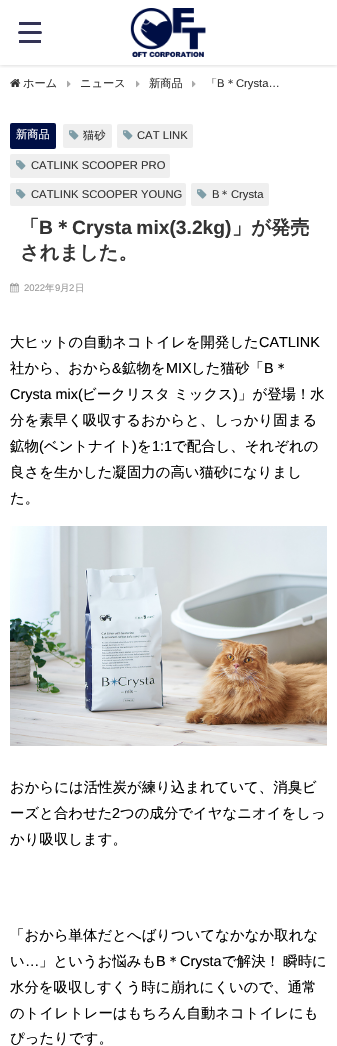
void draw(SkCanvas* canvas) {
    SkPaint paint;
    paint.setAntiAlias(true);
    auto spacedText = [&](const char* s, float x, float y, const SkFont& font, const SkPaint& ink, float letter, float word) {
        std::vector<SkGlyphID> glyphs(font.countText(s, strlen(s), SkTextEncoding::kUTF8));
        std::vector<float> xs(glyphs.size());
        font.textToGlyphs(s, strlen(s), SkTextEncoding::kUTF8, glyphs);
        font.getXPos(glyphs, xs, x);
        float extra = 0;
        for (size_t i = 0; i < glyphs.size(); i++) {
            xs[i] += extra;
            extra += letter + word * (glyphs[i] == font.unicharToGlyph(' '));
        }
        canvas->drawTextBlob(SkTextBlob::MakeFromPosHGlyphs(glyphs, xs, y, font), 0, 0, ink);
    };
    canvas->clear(0xFFFFFFFF);
    canvas->save();
    canvas->clipRect(SkRect::MakeXYWH(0, 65, 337, 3));
    paint.setColor(0x33000000);
    paint.setMaskFilter(SkMaskFilter::MakeBlur(kNormal_SkBlurStyle, 2));
    canvas->drawRect(SkRect::MakeXYWH(0, 0, 337, 65), paint);
    paint.setMaskFilter(nullptr);
    canvas->restore();
    paint.setColor(0xFF333355);
    canvas->drawRect(SkRect::MakeXYWH(19, 22, 22, 3), paint);
    canvas->drawRoundRect(SkRect::MakeXYWH(18, 31, 24, 3), 1.5f, 1.5f, paint);
    canvas->drawRect(SkRect::MakeXYWH(19, 40, 22, 3), paint);
    canvas->drawImageRect(SkImages::DeferredFromEncodedData(SkData::MakeFromFileName("img1.png")), SkRect::MakeXYWH(130, 8, 76, 49), SkSamplingOptions());
    canvas->drawImageRect(SkImages::DeferredFromEncodedData(SkData::MakeFromFileName("img2.png")), SkRect::MakeXYWH(10, 79, 11, 8), SkSamplingOptions());
    SkFont font1(fontMgr->matchFamilyStyle("WenQuanYi Zen Hei", SkFontStyle(500, SkFontStyle::kNormal_Width, SkFontStyle::kUpright_Slant)), 11.25f);
    font1.setSubpixel(true);
    paint.setColor(0xFF333333);
    canvas->drawString("ホーム", 23, 87, font1, paint);
    canvas->drawImageRect(SkImages::DeferredFromEncodedData(SkData::MakeFromFileName("img3.png")), SkRect::MakeXYWH(67, 80, 4, 8), SkSamplingOptions());
    canvas->drawString("ニュース", 80, 87, font1, paint);
    canvas->drawImageRect(SkImages::DeferredFromEncodedData(SkData::MakeFromFileName("img3.png")), SkRect::MakeXYWH(136, 80, 4, 8), SkSamplingOptions());
    canvas->drawString("新商品", 149, 87, font1, paint);
    canvas->drawImageRect(SkImages::DeferredFromEncodedData(SkData::MakeFromFileName("img3.png")), SkRect::MakeXYWH(192, 80, 4, 8), SkSamplingOptions());
    canvas->drawString("「", 206, 87, font1, paint);
    SkFont font2(fontMgr->matchFamilyStyle("Liberation Sans", SkFontStyle::Normal()), 11.25f);
    font2.setSubpixel(true);
    canvas->drawString("B", 217, 87, font2, paint);
    canvas->drawString("＊", 225, 87, font1, paint);
    canvas->drawString("Crysta…", 236, 87, font2, paint);
    paint.setColor(0xFF000F45);
    canvas->drawRoundRect(SkRect::MakeXYWH(10, 123, 46, 26), 2, 2, paint);
    paint.setColor(0xFFFFFFFF);
    canvas->drawString("新商品", 16, 138, font1, paint);
    paint.setColor(0xFFEFEFEF);
    canvas->drawRoundRect(SkRect::MakeXYWH(63, 124, 49, 24), 2, 2, paint);
    canvas->drawImageRect(SkImages::DeferredFromEncodedData(SkData::MakeFromFileName("img4.png")), SkRect::MakeXYWH(69, 130, 10, 10), SkSamplingOptions());
    paint.setColor(0xFF333333);
    canvas->drawString("猫砂", 83, 139, font1, paint);
    paint.setColor(0xFFEFEFEF);
    canvas->drawRoundRect(SkRect::MakeXYWH(117, 124, 76, 24), 2, 2, paint);
    canvas->drawImageRect(SkImages::DeferredFromEncodedData(SkData::MakeFromFileName("img4.png")), SkRect::MakeXYWH(123, 130, 10, 10), SkSamplingOptions());
    paint.setColor(0xFF333333);
    canvas->drawString("CAT LINK", 137, 139, font2, paint);
    paint.setColor(0xFFEFEFEF);
    canvas->drawRoundRect(SkRect::MakeXYWH(10, 154, 160, 24), 2, 2, paint);
    canvas->drawImageRect(SkImages::DeferredFromEncodedData(SkData::MakeFromFileName("img4.png")), SkRect::MakeXYWH(16, 160, 10, 10), SkSamplingOptions());
    paint.setColor(0xFF333333);
    canvas->drawString("CATLINK SCOOPER PRO", 31, 169, font2, paint);
    paint.setColor(0xFFEFEFEF);
    canvas->drawRoundRect(SkRect::MakeXYWH(10, 183, 176, 23), 2, 2, paint);
    canvas->drawImageRect(SkImages::DeferredFromEncodedData(SkData::MakeFromFileName("img4.png")), SkRect::MakeXYWH(16, 189, 10, 10), SkSamplingOptions());
    paint.setColor(0xFF333333);
    canvas->drawString("CATLINK SCOOPER YOUNG", 31, 198, font2, paint);
    paint.setColor(0xFFEFEFEF);
    canvas->drawRoundRect(SkRect::MakeXYWH(191, 183, 78, 23), 2, 2, paint);
    canvas->drawImageRect(SkImages::DeferredFromEncodedData(SkData::MakeFromFileName("img4.png")), SkRect::MakeXYWH(197, 189, 10, 10), SkSamplingOptions());
    paint.setColor(0xFF333333);
    canvas->drawString("B", 212, 198, font2, paint);
    canvas->drawString("＊", 219, 198, font1, paint);
    canvas->drawString("Crysta", 231, 198, font2, paint);
    SkFont font3(fontMgr->matchFamilyStyle("WenQuanYi Zen Hei", SkFontStyle::Bold()), 19.25f);
    font3.setSubpixel(true);
    canvas->drawString("「", 20, 234, font3, paint);
    SkFont font4(fontMgr->matchFamilyStyle("Liberation Sans", SkFontStyle::Bold()), 19.25f);
    font4.setSubpixel(true);
    canvas->drawString("B", 39, 234, font4, paint);
    canvas->drawString("＊", 53, 234, font3, paint);
    spacedText("Crysta mix(3.2kg)", 72, 234, font4, paint, 0, -1);
    canvas->drawString("」が発売", 232, 234, font3, paint);
    canvas->drawString("されました。", 20, 259, font3, paint);
    canvas->drawImageRect(SkImages::DeferredFromEncodedData(SkData::MakeFromFileName("img5.png")), SkRect::MakeXYWH(10, 282, 9, 11), SkSamplingOptions());
    SkFont font5(fontMgr->matchFamilyStyle("Liberation Sans", SkFontStyle::Normal()), 9.5f);
    font5.setSubpixel(true);
    paint.setColor(0xFF999999);
    canvas->drawString("2022", 24, 291, font5, paint);
    SkFont font6(fontMgr->matchFamilyStyle("WenQuanYi Zen Hei", SkFontStyle(500, SkFontStyle::kNormal_Width, SkFontStyle::kUpright_Slant)), 9.5f);
    font6.setSubpixel(true);
    canvas->drawString("年", 45, 291, font6, paint);
    canvas->drawString("9", 55, 291, font5, paint);
    canvas->drawString("月", 60, 291, font6, paint);
    canvas->drawString("2", 69, 291, font5, paint);
    canvas->drawString("日", 75, 291, font6, paint);
    SkFont font7(fontMgr->matchFamilyStyle("WenQuanYi Zen Hei", SkFontStyle(500, SkFontStyle::kNormal_Width, SkFontStyle::kUpright_Slant)), 14.4f);
    font7.setSubpixel(true);
    paint.setColor(0xFF000000);
    canvas->drawString("大ヒットの自動ネコトイレを開発した", 10, 347, font7, paint);
    SkFont font8(fontMgr->matchFamilyStyle("Liberation Sans", SkFontStyle::Normal()), 14.4f);
    font8.setSubpixel(true);
    canvas->drawString("CATLINK", 259, 347, font8, paint);
    canvas->drawString("社から、おから", 10, 373, font7, paint);
    canvas->drawString("&", 112, 373, font8, paint);
    canvas->drawString("鉱物を", 122, 373, font7, paint);
    canvas->drawString("MIX", 166, 373, font8, paint);
    canvas->drawString("した猫砂「", 191, 373, font7, paint);
    canvas->drawString("B", 264, 373, font8, paint);
    canvas->drawString("＊", 274, 373, font7, paint);
    canvas->drawString("Crysta mix(", 10, 399, font8, paint);
    canvas->drawString("ビークリスタ", 82, 399, font7, paint);
    canvas->drawString("ミックス", 174, 399, font7, paint);
    canvas->drawString(")", 233, 399, font8, paint);
    canvas->drawString("」が登場！水", 238, 399, font7, paint);
    canvas->drawString("分を素早く吸収するおからと、しっかり固まる", 10, 425, font7, paint);
    canvas->drawString("鉱物", 10, 451, font7, paint);
    canvas->drawString("(", 39, 451, font8, paint);
    canvas->drawString("ベントナイト", 44, 451, font7, paint);
    canvas->drawString(")", 132, 451, font8, paint);
    canvas->drawString("を", 137, 451, font7, paint);
    canvas->drawString("1:1", 152, 451, font8, paint);
    canvas->drawString("で配合し、それぞれの", 172, 451, font7, paint);
    canvas->drawString("良さを生かした凝固力の高い猫砂になりまし", 10, 477, font7, paint);
    canvas->drawString("た。", 10, 503, font7, paint);
    canvas->drawImageRect(SkImages::DeferredFromEncodedData(SkData::MakeFromFileName("img6.png")), SkRect::MakeXYWH(10, 526, 317, 220), SkSamplingOptions());
    canvas->drawString("おからには活性炭が練り込まれていて、消臭ビ", 10, 792, font7, paint);
    canvas->drawString("ーズと合わせた", 10, 818, font7, paint);
    canvas->drawString("2", 112, 818, font8, paint);
    canvas->drawString("つの成分でイヤなニオイをしっ", 120, 818, font7, paint);
    canvas->drawString("かり吸収します。", 10, 844, font7, paint);
    canvas->drawString("「おから単体だとへばりついてなかなか取れな", 10, 940, font7, paint);
    canvas->drawString("い", 10, 966, font7, paint);
    canvas->drawString("」というお悩みも", 39, 966, font7, paint);
    canvas->drawString("B", 156, 966, font8, paint);
    canvas->drawString("＊", 166, 966, font7, paint);
    canvas->drawString("Crysta", 180, 966, font8, paint);
    spacedText("で解決！ 瞬時に", 222, 966, font7, paint, 0, -1);
    canvas->drawString("…", 25, 966, font8, paint);
    canvas->drawString("水分を吸収しすくう時に崩れにくいので、通常", 10, 992, font7, paint);
    canvas->drawString("のトイレトレーはもちろん自動ネコトイレにも", 10, 1018, font7, paint);
    canvas->drawString("ぴったりです。", 10, 1043, font7, paint);
}
